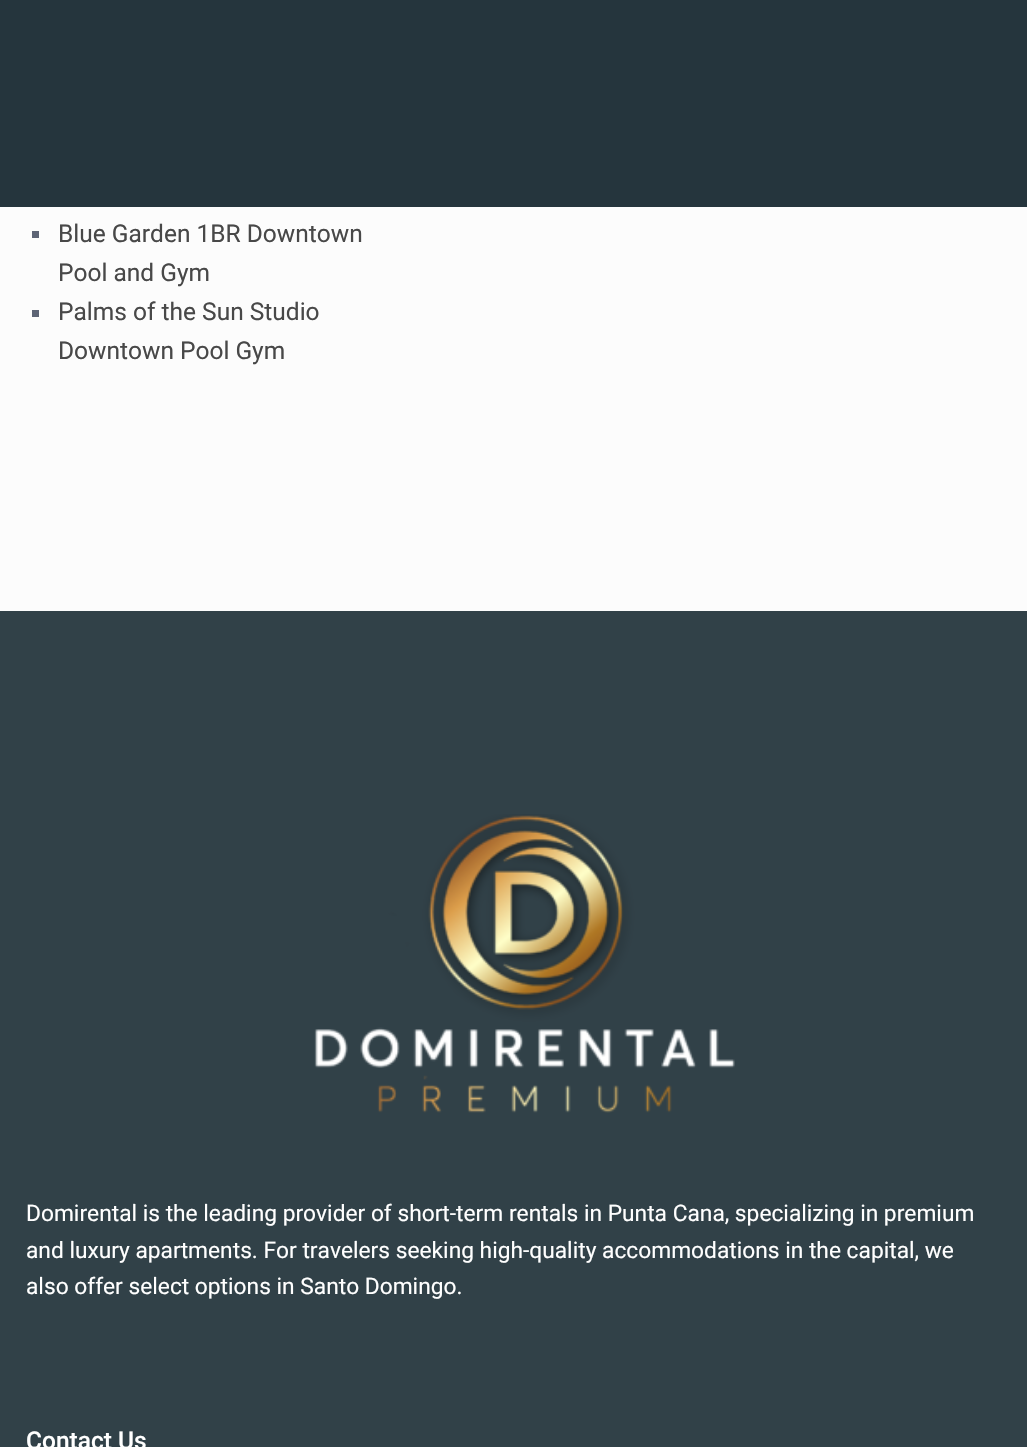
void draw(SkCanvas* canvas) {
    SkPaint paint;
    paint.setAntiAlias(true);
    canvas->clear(0xFFFCFCFC);
    paint.setColor(0xFF25353D);
    canvas->drawRect(SkRect::MakeXYWH(0, 0, 1027, 207), paint);
    paint.setColor(0xFF5D6475);
    canvas->drawRect(SkRect::MakeXYWH(32, 231, 7, 7), paint);
    SkFont font1(fontMgr->matchFamilyStyle("Roboto", SkFontStyle::Normal()), 24.5f);
    font1.setSubpixel(true);
    paint.setColor(0xFF484848);
    canvas->drawString("Blue Garden 1BR Downtown", 58, 242, font1, paint);
    canvas->drawString("Pool and Gym", 58, 281, font1, paint);
    paint.setColor(0xFF5D6475);
    canvas->drawRect(SkRect::MakeXYWH(32, 310, 7, 7), paint);
    paint.setColor(0xFF484848);
    canvas->drawString("Palms of the Sun Studio", 58, 320, font1, paint);
    canvas->drawString("Downtown Pool Gym", 58, 359, font1, paint);
    paint.setColor(0xFF314148);
    canvas->drawRect(SkRect::MakeXYWH(0, 611, 1027, 836), paint);
    canvas->drawImageRect(SkImages::DeferredFromEncodedData(SkData::MakeFromFileName("img1.png")), SkRect::MakeXYWH(314, 814, 421, 299), SkSamplingOptions());
    SkFont font2(fontMgr->matchFamilyStyle("Roboto", SkFontStyle::Normal()), 22.75f);
    font2.setSubpixel(true);
    paint.setColor(0xFFFFFFFF);
    canvas->drawString("Domirental is the leading provider of short-term rentals in Punta Cana, specializing in premium", 26, 1221, font2, paint);
    canvas->drawString("and luxury apartments. For travelers seeking high-quality accommodations in the capital, we", 26, 1258, font2, paint);
    canvas->drawString("also offer select options in Santo Domingo.", 26, 1294, font2, paint);
    SkFont font3(fontMgr->matchFamilyStyle("Roboto", SkFontStyle(500, SkFontStyle::kNormal_Width, SkFontStyle::kUpright_Slant)), 24.5f);
    font3.setSubpixel(true);
    canvas->drawString("Contact Us", 26, 1449, font3, paint);
}
